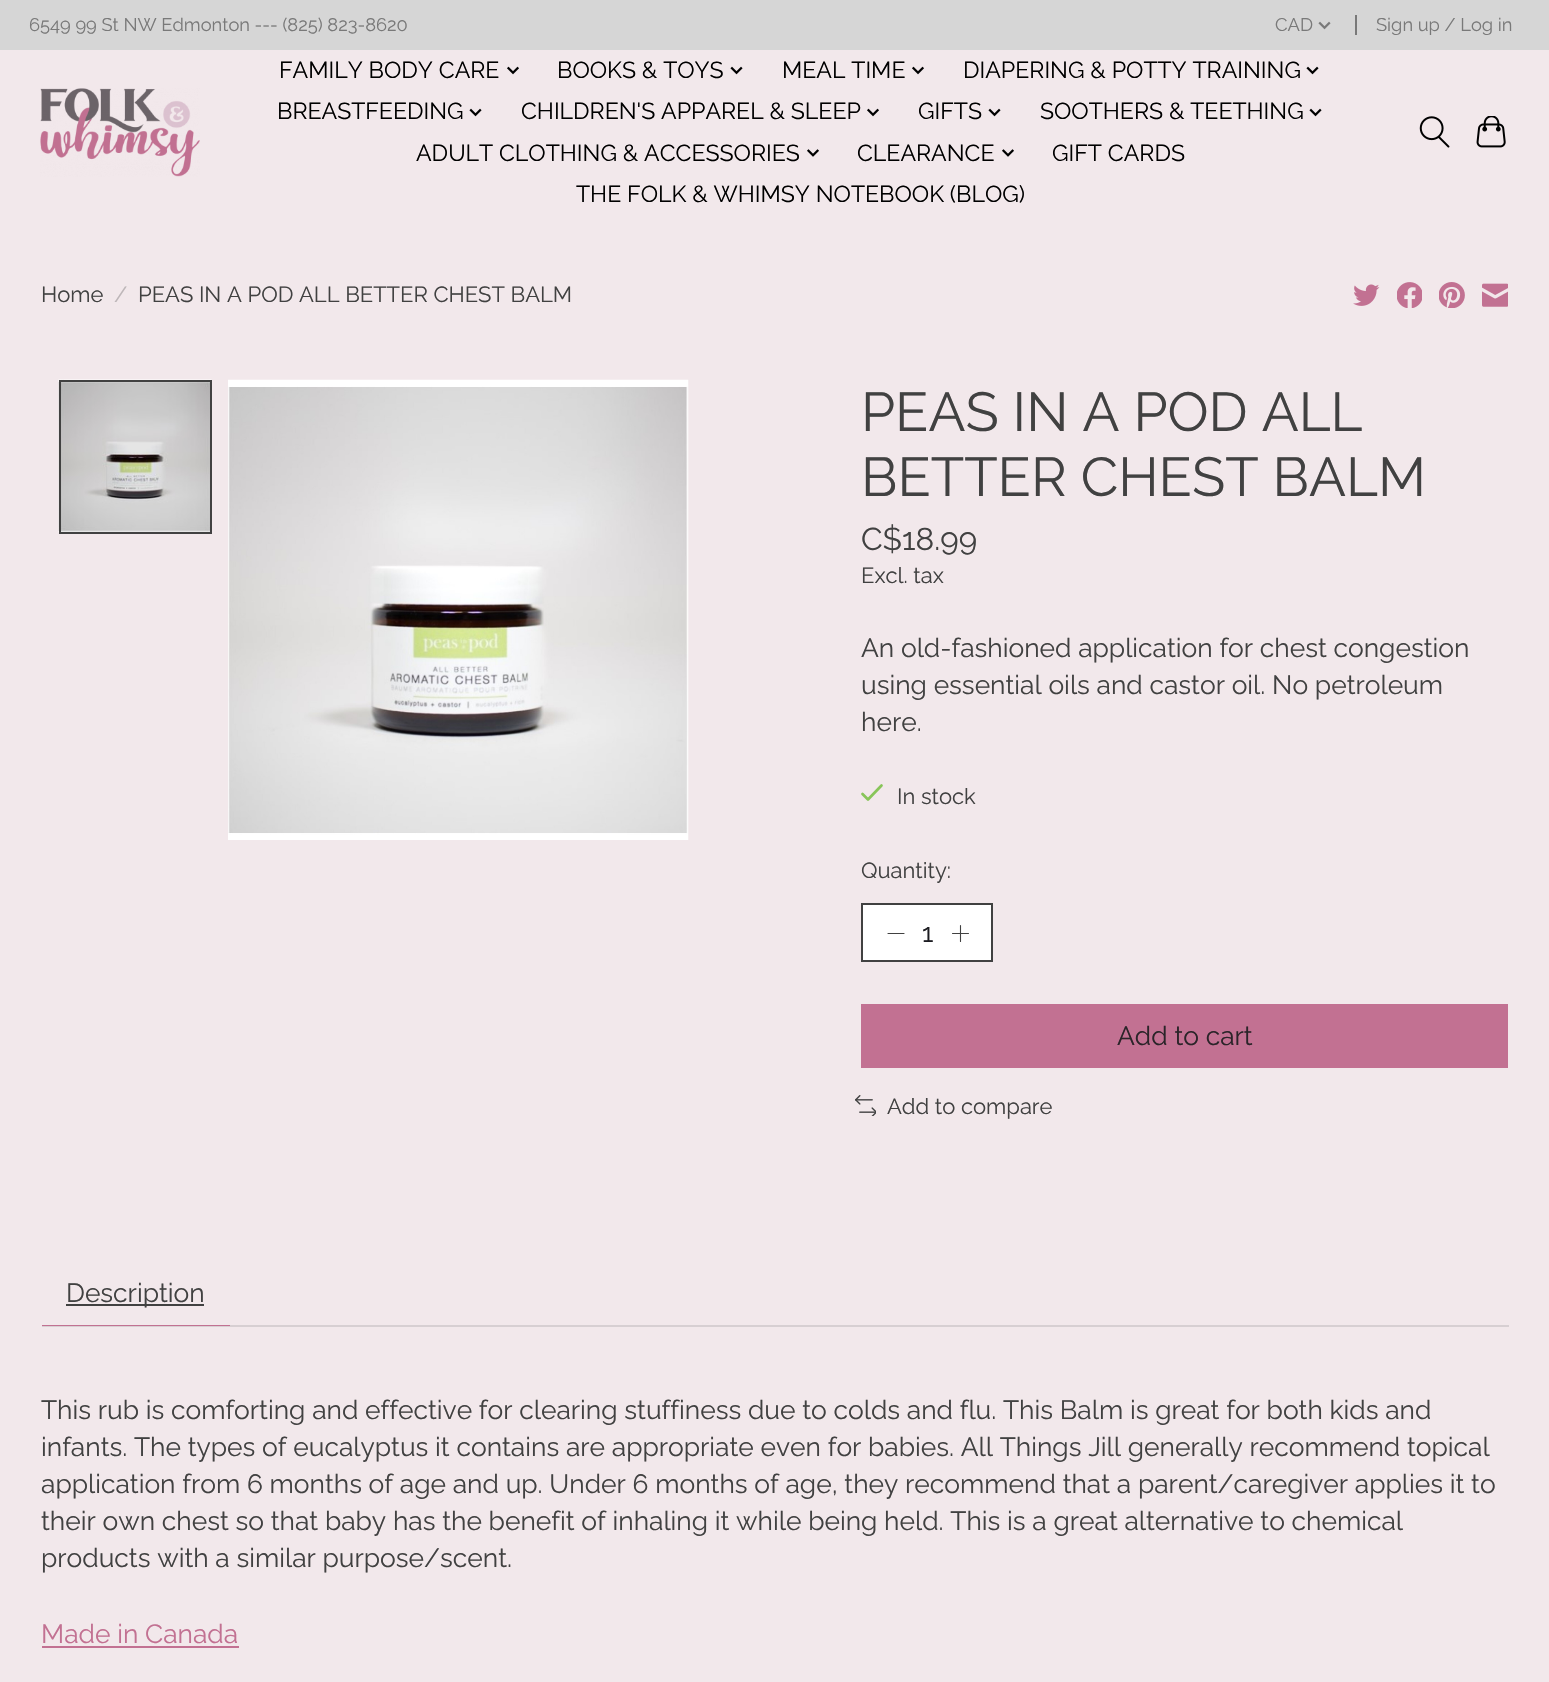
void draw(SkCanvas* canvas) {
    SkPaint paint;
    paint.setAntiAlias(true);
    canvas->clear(0xFFF2E8EB);
    paint.setColor(0xFFD6D6D6);
    canvas->drawRect(SkRect::MakeXYWH(0, 0, 1549, 50), paint);
    SkFont font1(fontMgr->matchFamilyStyle("Raleway", SkFontStyle::Normal()), 18.3f);
    font1.setSubpixel(true);
    paint.setColor(0xFF797979);
    canvas->drawString("6549 99 St NW Edmonton --- (825) 823-8620", 29, 31, font1, paint);
    canvas->drawString("CAD", 1275, 31, font1, paint);
    canvas->drawImageRect(SkImages::DeferredFromEncodedData(SkData::MakeFromFileName("img1.png")), SkRect::MakeXYWH(1318, 21, 13, 9), SkSamplingOptions());
    canvas->drawRect(SkRect::MakeXYWH(1355, 15, 2, 20), paint);
    canvas->drawString("Sign up / Log in", 1376, 31, font1, paint);
    canvas->drawImageRect(SkImages::DeferredFromEncodedData(SkData::MakeFromFileName("img2.png")), SkRect::MakeXYWH(40, 88, 160, 89), SkSamplingOptions());
    SkFont font2(fontMgr->matchFamilyStyle("Raleway", SkFontStyle::Normal()), 23.1f);
    font2.setSubpixel(true);
    paint.setColor(0xFF000000);
    canvas->drawString("FAMILY BODY CARE", 279, 78, font2, paint);
    canvas->drawImageRect(SkImages::DeferredFromEncodedData(SkData::MakeFromFileName("img3.png")), SkRect::MakeXYWH(507, 66, 12, 9), SkSamplingOptions());
    canvas->drawString("BOOKS & TOYS", 557, 78, font2, paint);
    canvas->drawImageRect(SkImages::DeferredFromEncodedData(SkData::MakeFromFileName("img4.png")), SkRect::MakeXYWH(730, 66, 13, 9), SkSamplingOptions());
    canvas->drawString("MEAL TIME", 782, 78, font2, paint);
    canvas->drawImageRect(SkImages::DeferredFromEncodedData(SkData::MakeFromFileName("img3.png")), SkRect::MakeXYWH(912, 66, 12, 9), SkSamplingOptions());
    canvas->drawString("DIAPERING & POTTY TRAINING", 963, 78, font2, paint);
    canvas->drawImageRect(SkImages::DeferredFromEncodedData(SkData::MakeFromFileName("img4.png")), SkRect::MakeXYWH(1306, 66, 13, 9), SkSamplingOptions());
    canvas->drawString("BREASTFEEDING", 277, 119, font2, paint);
    canvas->drawImageRect(SkImages::DeferredFromEncodedData(SkData::MakeFromFileName("img4.png")), SkRect::MakeXYWH(469, 108, 13, 9), SkSamplingOptions());
    canvas->drawString("CHILDREN'S APPAREL & SLEEP", 521, 119, font2, paint);
    canvas->drawImageRect(SkImages::DeferredFromEncodedData(SkData::MakeFromFileName("img3.png")), SkRect::MakeXYWH(867, 108, 12, 9), SkSamplingOptions());
    canvas->drawString("GIFTS", 918, 119, font2, paint);
    canvas->drawImageRect(SkImages::DeferredFromEncodedData(SkData::MakeFromFileName("img4.png")), SkRect::MakeXYWH(988, 108, 13, 9), SkSamplingOptions());
    canvas->drawString("SOOTHERS & TEETHING", 1040, 119, font2, paint);
    canvas->drawImageRect(SkImages::DeferredFromEncodedData(SkData::MakeFromFileName("img4.png")), SkRect::MakeXYWH(1309, 108, 13, 9), SkSamplingOptions());
    canvas->drawString("ADULT CLOTHING & ACCESSORIES", 416, 161, font2, paint);
    canvas->drawImageRect(SkImages::DeferredFromEncodedData(SkData::MakeFromFileName("img5.png")), SkRect::MakeXYWH(807, 149, 12, 8), SkSamplingOptions());
    canvas->drawString("CLEARANCE", 857, 161, font2, paint);
    canvas->drawImageRect(SkImages::DeferredFromEncodedData(SkData::MakeFromFileName("img5.png")), SkRect::MakeXYWH(1002, 149, 12, 8), SkSamplingOptions());
    canvas->drawString("GIFT CARDS", 1052, 161, font2, paint);
    canvas->drawString("THE FOLK & WHIMSY NOTEBOOK (BLOG)", 576, 202, font2, paint);
    canvas->drawImageRect(SkImages::DeferredFromEncodedData(SkData::MakeFromFileName("img6.png")), SkRect::MakeXYWH(1419, 116, 31, 32), SkSamplingOptions());
    canvas->drawImageRect(SkImages::DeferredFromEncodedData(SkData::MakeFromFileName("img7.png")), SkRect::MakeXYWH(1476, 116, 30, 32), SkSamplingOptions());
    SkFont font3(fontMgr->matchFamilyStyle("Raleway", SkFontStyle::Normal()), 22);
    font3.setSubpixel(true);
    paint.setColor(0xFF414141);
    canvas->drawString("Home", 41, 302, font3, paint);
    paint.setColor(0xFFBDB6B8);
    canvas->drawString("/", 114, 302, font3, paint);
    paint.setColor(0xFF414141);
    canvas->drawString("PEAS IN A POD ALL BETTER CHEST BALM", 138, 302, font3, paint);
    canvas->drawImageRect(SkImages::DeferredFromEncodedData(SkData::MakeFromFileName("img8.png")), SkRect::MakeXYWH(1353, 284, 27, 22), SkSamplingOptions());
    canvas->drawImageRect(SkImages::DeferredFromEncodedData(SkData::MakeFromFileName("img9.png")), SkRect::MakeXYWH(1397, 282, 25, 26), SkSamplingOptions());
    canvas->drawImageRect(SkImages::DeferredFromEncodedData(SkData::MakeFromFileName("img10.png")), SkRect::MakeXYWH(1439, 282, 26, 26), SkSamplingOptions());
    canvas->drawImageRect(SkImages::DeferredFromEncodedData(SkData::MakeFromFileName("img11.png")), SkRect::MakeXYWH(1482, 283, 26, 24), SkSamplingOptions());
    canvas->drawImageRect(SkImages::DeferredFromEncodedData(SkData::MakeFromFileName("img12.png")), SkRect::MakeXYWH(58, 379, 154, 154), SkSamplingOptions());
    paint.setStyle(SkPaint::kStroke_Style);
    paint.setStrokeWidth(2);
    canvas->drawRect(SkRect::MakeXYWH(60, 381, 151, 152), paint);
    canvas->drawImageRect(SkImages::DeferredFromEncodedData(SkData::MakeFromFileName("img13.png")), SkRect::MakeXYWH(228, 379, 461, 461), SkSamplingOptions());
    SkFont font4(fontMgr->matchFamilyStyle("Raleway", SkFontStyle::Normal()), 54.75f);
    font4.setSubpixel(true);
    paint.setStyle(SkPaint::kFill_Style);
    canvas->drawString("PEAS IN A POD ALL", 861, 431, font4, paint);
    canvas->drawString("BETTER CHEST BALM", 861, 496, font4, paint);
    SkFont font5(fontMgr->matchFamilyStyle("Raleway", SkFontStyle::Normal()), 31.5f);
    font5.setSubpixel(true);
    canvas->drawString("C$18.99", 861, 550, font5, paint);
    canvas->drawString("Excl. tax", 861, 583, font3, paint);
    SkFont font6(fontMgr->matchFamilyStyle("Raleway", SkFontStyle::Normal()), 26.4f);
    font6.setSubpixel(true);
    canvas->drawString("An old-fashioned application for chest congestion", 861, 657, font6, paint);
    canvas->drawString("using essential oils and castor oil. No petroleum", 861, 694, font6, paint);
    canvas->drawString("here.", 861, 731, font6, paint);
    paint.setStyle(SkPaint::kStroke_Style);
    paint.setStrokeWidth(2.7f);
    paint.setStrokeCap(SkPaint::kRound_Cap);
    paint.setStrokeJoin(SkPaint::kRound_Join);
    paint.setColor(0xFF88C559);
    canvas->drawPath(SkPathBuilder().moveTo(862.5f, 794).lineTo(868, 799.5f).lineTo(881.5f, 785.5f).detach(), paint);
    paint.setStyle(SkPaint::kFill_Style);
    paint.setColor(0xFF414141);
    canvas->drawString("In stock", 897, 804, font3, paint);
    canvas->drawString("Quantity:", 861, 878, font3, paint);
    paint.setColor(0xFFFFFFFF);
    canvas->drawRect(SkRect::MakeXYWH(862, 904, 130, 57), paint);
    paint.setStyle(SkPaint::kStroke_Style);
    paint.setStrokeWidth(2);
    paint.setStrokeCap(SkPaint::kButt_Cap);
    paint.setStrokeJoin(SkPaint::kMiter_Join);
    paint.setColor(0xFF414141);
    canvas->drawRect(SkRect::MakeXYWH(862, 904, 130, 57), paint);
    paint.setStrokeWidth(1.1f);
    paint.setStrokeCap(SkPaint::kRound_Cap);
    paint.setStrokeJoin(SkPaint::kRound_Join);
    canvas->drawPath(SkPathBuilder().moveTo(888, 933.5f).lineTo(904, 933.5f).detach(), paint);
    paint.setStyle(SkPaint::kFill_Style);
    paint.setColor(0xFF1C1C21);
    canvas->drawString("1", 922, 942, font6, paint);
    paint.setStyle(SkPaint::kStroke_Style);
    paint.setColor(0xFF414141);
    canvas->drawPath(SkPathBuilder().moveTo(960.5f, 925.5f).lineTo(960.5f, 941.5f).moveTo(952.5f, 933.5f).lineTo(968.5f, 933.5f).detach(), paint);
    paint.setStyle(SkPaint::kFill_Style);
    paint.setColor(0xFFC27192);
    canvas->drawRect(SkRect::MakeXYWH(861, 1004, 647, 64), paint);
    paint.setColor(0xFF2B2429);
    canvas->drawString("Add to cart", 1117, 1045, font6, paint);
    canvas->drawImageRect(SkImages::DeferredFromEncodedData(SkData::MakeFromFileName("img14.png")), SkRect::MakeXYWH(855, 1095, 21, 21), SkSamplingOptions());
    paint.setColor(0xFF414141);
    canvas->drawString("Add to compare", 887, 1114, font3, paint);
    paint.setColor(0xFFD7CFD2);
    canvas->drawRect(SkRect::MakeXYWH(42, 1325, 1467, 2), paint);
    paint.setColor(0xFFC27192);
    canvas->drawRect(SkRect::MakeXYWH(42, 1325, 188, 1), paint);
    paint.setColor(0xFF414141);
    canvas->drawRect(SkRect::MakeXYWH(66, 1304, 138, 2), paint);
    canvas->drawString("Description", 66, 1302, font6, paint);
    canvas->drawString("This rub is comforting and effective for clearing stuffiness due to colds and flu. This Balm is great for both kids and", 41, 1419, font6, paint);
    canvas->drawString("infants. The types of eucalyptus it contains are appropriate even for babies. All Things Jill generally recommend topical", 41, 1456, font6, paint);
    canvas->drawString("application from 6 months of age and up. Under 6 months of age, they recommend that a parent/caregiver applies it to", 41, 1493, font6, paint);
    canvas->drawString("their own chest so that baby has the benefit of inhaling it while being held. This is a great alternative to chemical", 41, 1530, font6, paint);
    canvas->drawString("products with a similar purpose/scent.", 41, 1567, font6, paint);
    paint.setColor(0xFFC27192);
    canvas->drawString("Made in Canada", 41, 1643, font6, paint);
    canvas->drawRect(SkRect::MakeXYWH(42, 1646, 197, 2), paint);
}
